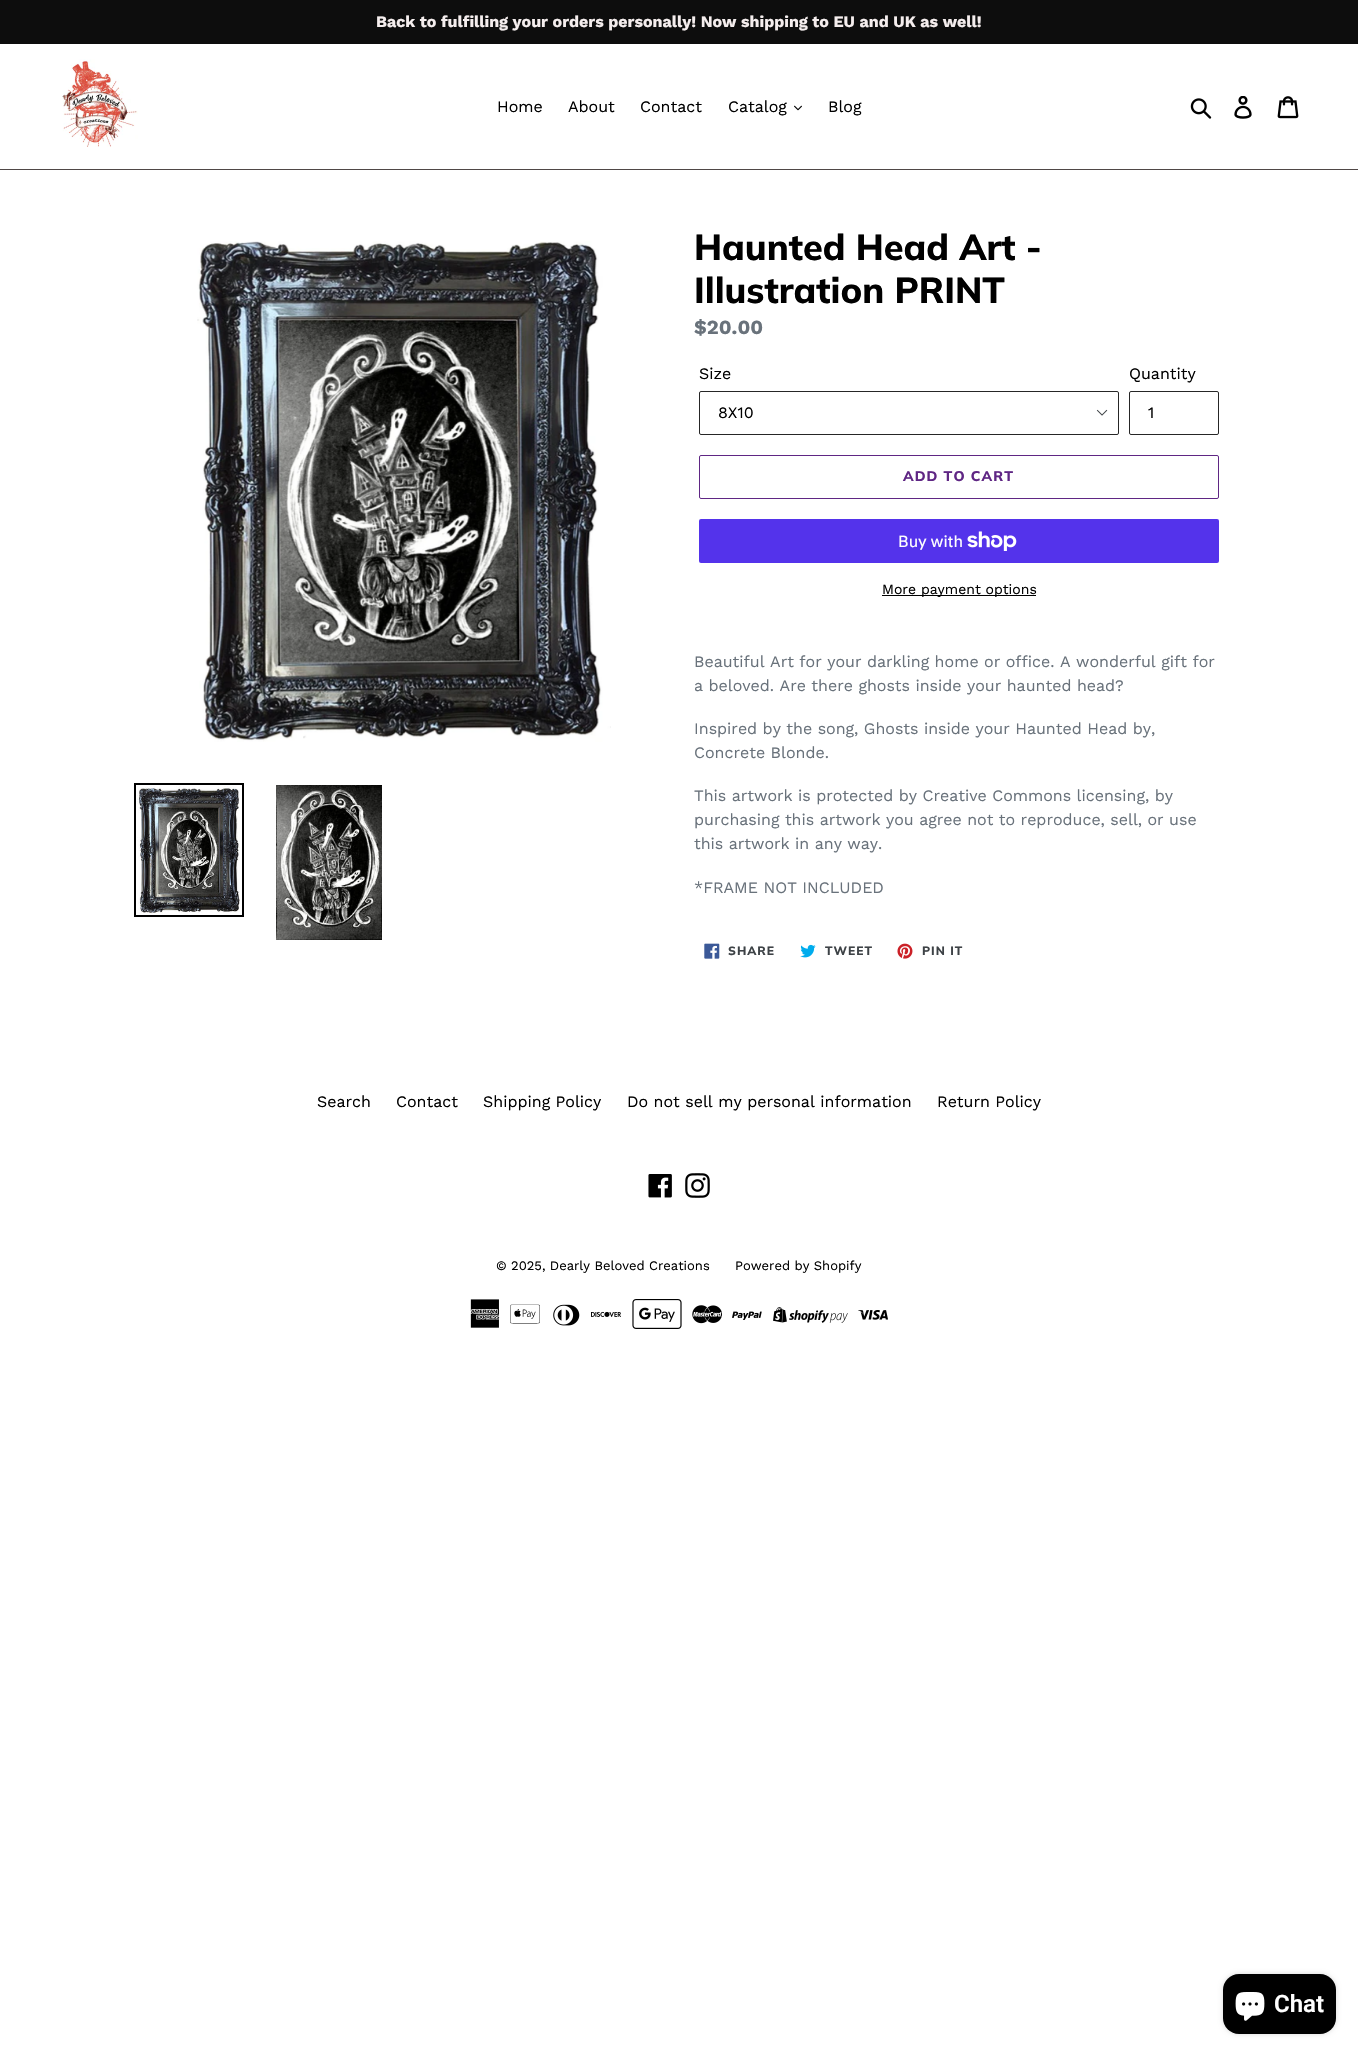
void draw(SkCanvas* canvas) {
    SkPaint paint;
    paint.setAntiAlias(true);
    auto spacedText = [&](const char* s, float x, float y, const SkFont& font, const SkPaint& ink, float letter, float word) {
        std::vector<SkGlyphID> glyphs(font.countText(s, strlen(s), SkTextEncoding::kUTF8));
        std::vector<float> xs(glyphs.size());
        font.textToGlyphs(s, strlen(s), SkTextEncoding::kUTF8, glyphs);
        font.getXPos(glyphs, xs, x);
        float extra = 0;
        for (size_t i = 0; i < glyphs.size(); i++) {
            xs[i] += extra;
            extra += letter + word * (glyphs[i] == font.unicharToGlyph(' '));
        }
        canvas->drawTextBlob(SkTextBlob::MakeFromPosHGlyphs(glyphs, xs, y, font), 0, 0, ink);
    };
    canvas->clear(0xFFFFFFFF);
    paint.setColor(0xFF0D0D0D);
    canvas->drawRect(SkRect::MakeXYWH(0, 0, 1358, 44), paint);
    SkFont font1(fontMgr->matchFamilyStyle("Work Sans", SkFontStyle::Bold()), 16);
    font1.setSubpixel(true);
    paint.setColor(0xFFF5EEEE);
    canvas->drawString("Back to fulfilling your orders personally! Now shipping to EU and UK as well!", 376, 27, font1, paint);
    paint.setColor(0xFF4F4746);
    canvas->drawRect(SkRect::MakeXYWH(0, 169, 1358, 1), paint);
    canvas->drawImageRect(SkImages::DeferredFromEncodedData(SkData::MakeFromFileName("img1.png")), SkRect::MakeXYWH(62, 59, 76, 88), SkSamplingOptions());
    SkFont font2(fontMgr->matchFamilyStyle("Work Sans", SkFontStyle::Normal()), 16);
    font2.setSubpixel(true);
    paint.setColor(0xFF000000);
    canvas->drawString("Home", 497, 112, font2, paint);
    canvas->drawString("About", 568, 112, font2, paint);
    canvas->drawString("Contact", 640, 112, font2, paint);
    canvas->drawString("Catalog", 728, 112, font2, paint);
    canvas->drawImageRect(SkImages::DeferredFromEncodedData(SkData::MakeFromFileName("img2.png")), SkRect::MakeXYWH(794, 105, 8, 6), SkSamplingOptions());
    canvas->drawString("Blog", 828, 112, font2, paint);
    canvas->drawImageRect(SkImages::DeferredFromEncodedData(SkData::MakeFromFileName("img3.png")), SkRect::MakeXYWH(1190, 98, 22, 21), SkSamplingOptions());
    canvas->drawImageRect(SkImages::DeferredFromEncodedData(SkData::MakeFromFileName("img4.png")), SkRect::MakeXYWH(1234, 96, 18, 23), SkSamplingOptions());
    canvas->drawImageRect(SkImages::DeferredFromEncodedData(SkData::MakeFromFileName("img5.png")), SkRect::MakeXYWH(1277, 96, 22, 23), SkSamplingOptions());
    canvas->drawImageRect(SkImages::DeferredFromEncodedData(SkData::MakeFromFileName("img6.png")), SkRect::MakeXYWH(197, 241, 414, 501), SkSamplingOptions());
    paint.setStyle(SkPaint::kStroke_Style);
    paint.setStrokeWidth(2);
    canvas->drawRect(SkRect::MakeXYWH(135, 784, 108, 132), paint);
    canvas->drawImageRect(SkImages::DeferredFromEncodedData(SkData::MakeFromFileName("img7.png")), SkRect::MakeXYWH(137, 786, 103, 128), SkSamplingOptions());
    canvas->drawImageRect(SkImages::DeferredFromEncodedData(SkData::MakeFromFileName("img8.png")), SkRect::MakeXYWH(276, 785, 106, 155), SkSamplingOptions());
    SkFont font3(fontMgr->matchFamilyStyle("Muli", SkFontStyle(800, SkFontStyle::kNormal_Width, SkFontStyle::kUpright_Slant)), 36);
    font3.setSubpixel(true);
    paint.setStyle(SkPaint::kFill_Style);
    canvas->drawString("Haunted Head Art -", 694, 260, font3, paint);
    canvas->drawString("Illustration PRINT", 694, 303, font3, paint);
    SkFont font4(fontMgr->matchFamilyStyle("Work Sans", SkFontStyle::Bold()), 20);
    font4.setSubpixel(true);
    paint.setColor(0xFF69727B);
    canvas->drawString("$20.00", 694, 334, font4, paint);
    paint.setColor(0xFF000000);
    canvas->drawString("Size", 699, 379, font2, paint);
    canvas->drawImageRect(SkImages::DeferredFromEncodedData(SkData::MakeFromFileName("img9.png")), SkRect::MakeXYWH(1096, 409, 12, 7), SkSamplingOptions());
    paint.setStyle(SkPaint::kStroke_Style);
    paint.setStrokeWidth(1);
    paint.setColor(0xFF262626);
    canvas->drawRoundRect(SkRect::MakeXYWH(699.5f, 391.5f, 419, 43), 1.5f, 1.5f, paint);
    paint.setStyle(SkPaint::kFill_Style);
    paint.setColor(0xFF000000);
    canvas->drawString("8X10", 718, 418, font2, paint);
    canvas->drawString("Quantity", 1129, 379, font2, paint);
    paint.setStyle(SkPaint::kStroke_Style);
    paint.setColor(0xFF262626);
    canvas->drawRoundRect(SkRect::MakeXYWH(1129.5f, 391.5f, 89, 43), 1.5f, 1.5f, paint);
    paint.setStyle(SkPaint::kFill_Style);
    paint.setColor(0xFF000000);
    canvas->drawString("1", 1148, 418, font2, paint);
    paint.setStyle(SkPaint::kStroke_Style);
    paint.setColor(0xFF5F2684);
    canvas->drawRoundRect(SkRect::MakeXYWH(699.5f, 455.5f, 519, 43), 1.5f, 1.5f, paint);
    SkFont font5(fontMgr->matchFamilyStyle("Muli", SkFontStyle(800, SkFontStyle::kNormal_Width, SkFontStyle::kUpright_Slant)), 14);
    font5.setSubpixel(true);
    paint.setStyle(SkPaint::kFill_Style);
    spacedText("ADD TO CART", 903, 481, font5, paint, 1.1f, 0);
    paint.setColor(0xFF5433EB);
    canvas->drawRoundRect(SkRect::MakeXYWH(699, 519, 520, 44), 2, 2, paint);
    SkFont font6(fontMgr->matchFamilyStyle("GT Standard", SkFontStyle::Normal()), 16);
    font6.setSubpixel(true);
    paint.setColor(0xFFFFFFFF);
    canvas->drawString("Buy with", 898, 547, font6, paint);
    canvas->drawImageRect(SkImages::DeferredFromEncodedData(SkData::MakeFromFileName("img10.png")), SkRect::MakeXYWH(967, 531, 50, 20), SkSamplingOptions());
    paint.setColor(0xFF000000);
    canvas->drawRect(SkRect::MakeXYWH(882, 595, 154, 1), paint);
    SkFont font7(fontMgr->matchFamilyStyle("Work Sans", SkFontStyle::Normal()), 14);
    font7.setSubpixel(true);
    canvas->drawString("More payment options", 882, 594, font7, paint);
    paint.setColor(0xFF69727B);
    canvas->drawString("Beautiful Art for your darkling home or office. A wonderful gift for", 694, 667, font2, paint);
    canvas->drawString("a beloved. Are there ghosts inside your haunted head?", 694, 691, font2, paint);
    canvas->drawString("Inspired by the song, Ghosts inside your Haunted Head by,", 694, 734, font2, paint);
    canvas->drawString("Concrete Blonde.", 694, 758, font2, paint);
    canvas->drawString("This artwork is protected by Creative Commons licensing, by", 694, 801, font2, paint);
    canvas->drawString("purchasing this artwork you agree not to reproduce, sell, or use", 694, 825, font2, paint);
    canvas->drawString("this artwork in any way.", 694, 849, font2, paint);
    canvas->drawString("*FRAME NOT INCLUDED", 694, 893, font2, paint);
    canvas->drawImageRect(SkImages::DeferredFromEncodedData(SkData::MakeFromFileName("img11.png")), SkRect::MakeXYWH(704, 943, 16, 16), SkSamplingOptions());
    SkFont font8(fontMgr->matchFamilyStyle("Muli", SkFontStyle(800, SkFontStyle::kNormal_Width, SkFontStyle::kUpright_Slant)), 12);
    font8.setSubpixel(true);
    paint.setColor(0xFF3D4246);
    spacedText("SHARE", 728, 955, font8, paint, 1, 0);
    canvas->drawImageRect(SkImages::DeferredFromEncodedData(SkData::MakeFromFileName("img12.png")), SkRect::MakeXYWH(800, 944, 16, 14), SkSamplingOptions());
    spacedText("TWEET", 825, 955, font8, paint, 1, 0);
    canvas->drawImageRect(SkImages::DeferredFromEncodedData(SkData::MakeFromFileName("img13.png")), SkRect::MakeXYWH(897, 943, 16, 16), SkSamplingOptions());
    spacedText("PIN IT", 922, 955, font8, paint, 1, 0);
    paint.setColor(0xFF000000);
    canvas->drawString("Search", 317, 1107, font2, paint);
    canvas->drawString("Contact", 396, 1107, font2, paint);
    canvas->drawString("Shipping Policy", 483, 1107, font2, paint);
    canvas->drawString("Do not sell my personal information", 627, 1107, font2, paint);
    canvas->drawString("Return Policy", 937, 1107, font2, paint);
    canvas->drawImageRect(SkImages::DeferredFromEncodedData(SkData::MakeFromFileName("img14.png")), SkRect::MakeXYWH(648, 1174, 24, 24), SkSamplingOptions());
    canvas->drawImageRect(SkImages::DeferredFromEncodedData(SkData::MakeFromFileName("img15.png")), SkRect::MakeXYWH(685, 1173, 25, 25), SkSamplingOptions());
    SkFont font9(fontMgr->matchFamilyStyle("Work Sans", SkFontStyle::Normal()), 13);
    font9.setSubpixel(true);
    canvas->drawString("© 2025, Dearly Beloved Creations", 496, 1270, font9, paint);
    canvas->drawString("Powered by Shopify", 735, 1270, font9, paint);
    canvas->drawImageRect(SkImages::DeferredFromEncodedData(SkData::MakeFromFileName("img16.png")), SkRect::MakeXYWH(470, 1299, 30, 29), SkSamplingOptions());
    canvas->drawImageRect(SkImages::DeferredFromEncodedData(SkData::MakeFromFileName("img17.png")), SkRect::MakeXYWH(510, 1304, 30, 20), SkSamplingOptions());
    canvas->drawImageRect(SkImages::DeferredFromEncodedData(SkData::MakeFromFileName("img18.png")), SkRect::MakeXYWH(553, 1304, 27, 22), SkSamplingOptions());
    canvas->drawImageRect(SkImages::DeferredFromEncodedData(SkData::MakeFromFileName("img19.png")), SkRect::MakeXYWH(591, 1311, 30, 6), SkSamplingOptions());
    canvas->drawImageRect(SkImages::DeferredFromEncodedData(SkData::MakeFromFileName("img20.png")), SkRect::MakeXYWH(632, 1299, 50, 30), SkSamplingOptions());
    canvas->drawImageRect(SkImages::DeferredFromEncodedData(SkData::MakeFromFileName("img21.png")), SkRect::MakeXYWH(692, 1305, 30, 19), SkSamplingOptions());
    canvas->drawImageRect(SkImages::DeferredFromEncodedData(SkData::MakeFromFileName("img22.png")), SkRect::MakeXYWH(732, 1311, 30, 9), SkSamplingOptions());
    canvas->drawImageRect(SkImages::DeferredFromEncodedData(SkData::MakeFromFileName("img23.png")), SkRect::MakeXYWH(773, 1307, 75, 16), SkSamplingOptions());
    canvas->drawImageRect(SkImages::DeferredFromEncodedData(SkData::MakeFromFileName("img24.png")), SkRect::MakeXYWH(858, 1310, 30, 10), SkSamplingOptions());
    paint.setColor(0x26000000);
    paint.setMaskFilter(SkMaskFilter::MakeBlur(kNormal_SkBlurStyle, 2.5f));
    canvas->drawRoundRect(SkRect::MakeXYWH(1223, 1974, 113, 60), 16, 16, paint);
    paint.setMaskFilter(nullptr);
    paint.setColor(0xFF000000);
    canvas->drawRoundRect(SkRect::MakeXYWH(1223, 1974, 113, 60), 16, 16, paint);
    canvas->drawImageRect(SkImages::DeferredFromEncodedData(SkData::MakeFromFileName("img25.png")), SkRect::MakeXYWH(1235, 1992, 30, 29), SkSamplingOptions());
    SkFont font10(fontMgr->matchFamilyStyle("Roboto", SkFontStyle(600, SkFontStyle::kNormal_Width, SkFontStyle::kUpright_Slant)), 24);
    font10.setSubpixel(true);
    paint.setColor(0xFFFFFFFF);
    canvas->drawString("Chat", 1274, 2012, font10, paint);
}
